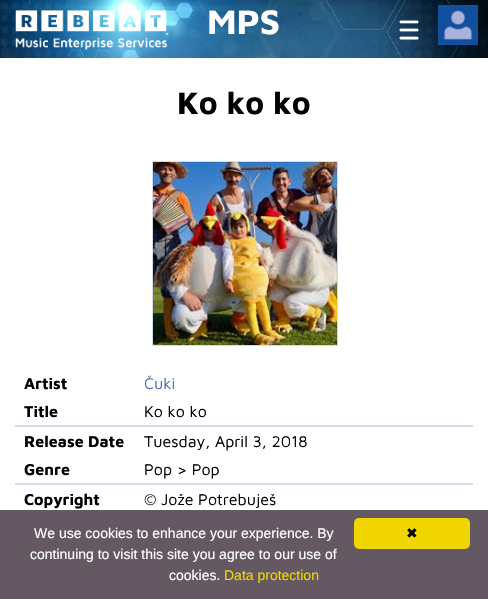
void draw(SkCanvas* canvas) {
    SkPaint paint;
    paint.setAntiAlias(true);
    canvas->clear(0xFFFFFFFF);
    canvas->drawImageRect(SkImages::DeferredFromEncodedData(SkData::MakeFromFileName("img1.png")), SkRect::MakeXYWH(0, 0, 488, 58), SkSamplingOptions());
    canvas->drawImageRect(SkImages::DeferredFromEncodedData(SkData::MakeFromFileName("img2.png")), SkRect::MakeXYWH(15, 10, 152, 40), SkSamplingOptions());
    SkFont font1(fontMgr->matchFamilyStyle("Maven Pro", SkFontStyle::Bold()), 35);
    font1.setSubpixel(true);
    paint.setColor(0xFFFFFFFF);
    canvas->drawString("MPS", 207, 34, font1, paint);
    canvas->drawImageRect(SkImages::DeferredFromEncodedData(SkData::MakeFromFileName("img3.png")), SkRect::MakeXYWH(399, 20, 20, 20), SkSamplingOptions());
    canvas->drawImageRect(SkImages::DeferredFromEncodedData(SkData::MakeFromFileName("img4.png")), SkRect::MakeXYWH(438, 5, 40, 40), SkSamplingOptions());
    SkFont font2(fontMgr->matchFamilyStyle("Maven Pro", SkFontStyle::Bold()), 32);
    font2.setSubpixel(true);
    paint.setColor(0xFF000000);
    canvas->drawString("Ko ko ko", 177, 114, font2, paint);
    paint.setStyle(SkPaint::kStroke_Style);
    paint.setStrokeWidth(1);
    paint.setColor(0xFFD0DCEC);
    canvas->drawRect(SkRect::MakeXYWH(152.5f, 161.5f, 185, 184), paint);
    canvas->drawImageRect(SkImages::DeferredFromEncodedData(SkData::MakeFromFileName("img5.png")), SkRect::MakeXYWH(153, 162, 184, 183), SkSamplingOptions());
    SkFont font3(fontMgr->matchFamilyStyle("Maven Pro", SkFontStyle::Bold()), 16);
    font3.setSubpixel(true);
    paint.setStyle(SkPaint::kFill_Style);
    paint.setColor(0xFF000000);
    canvas->drawString("Artist", 24, 389, font3, paint);
    SkFont font4(fontMgr->matchFamilyStyle("Maven Pro", SkFontStyle::Normal()), 16);
    font4.setSubpixel(true);
    paint.setColor(0xFF4373B3);
    canvas->drawString("Čuki", 144, 389, font4, paint);
    paint.setColor(0xFF000000);
    canvas->drawString("Title", 24, 417, font3, paint);
    canvas->drawString("Ko ko ko", 144, 417, font4, paint);
    paint.setColor(0xFFD0DCEC);
    canvas->drawRect(SkRect::MakeXYWH(15, 425, 458, 2), paint);
    paint.setColor(0xFF000000);
    canvas->drawString("Release Date", 24, 447, font3, paint);
    canvas->drawString("Tuesday, April 3, 2018", 144, 447, font4, paint);
    canvas->drawString("Genre", 24, 475, font3, paint);
    canvas->drawString("Pop > Pop", 144, 475, font4, paint);
    paint.setColor(0xFFD0DCEC);
    canvas->drawRect(SkRect::MakeXYWH(15, 483, 458, 2), paint);
    paint.setColor(0xFF000000);
    canvas->drawString("Copyright", 24, 505, font3, paint);
    canvas->drawString("© Jože Potrebuješ", 144, 505, font4, paint);
    paint.setColor(0xFF645862);
    canvas->drawRect(SkRect::MakeXYWH(0, 510, 488, 89), paint);
    SkFont font5(fontMgr->matchFamilyStyle("Liberation Sans", SkFontStyle::Normal()), 14);
    font5.setSubpixel(true);
    paint.setColor(0xFFFFFFFF);
    canvas->drawString("We use cookies to enhance your experience. By", 34, 538, font5, paint);
    canvas->drawString("continuing to visit this site you agree to our use of", 30, 559, font5, paint);
    canvas->drawString("cookies.", 169, 580, font5, paint);
    paint.setColor(0xFFF1D600);
    canvas->drawString("Data protection", 224, 580, font5, paint);
    canvas->drawRoundRect(SkRect::MakeXYWH(354, 518, 116, 31), 5, 5, paint);
    SkFont font6(fontMgr->matchFamilyStyle("DejaVu Sans", SkFontStyle::Normal()), 14);
    font6.setSubpixel(true);
    paint.setColor(0xFF000000);
    canvas->drawString("✖", 406, 538, font6, paint);
}
